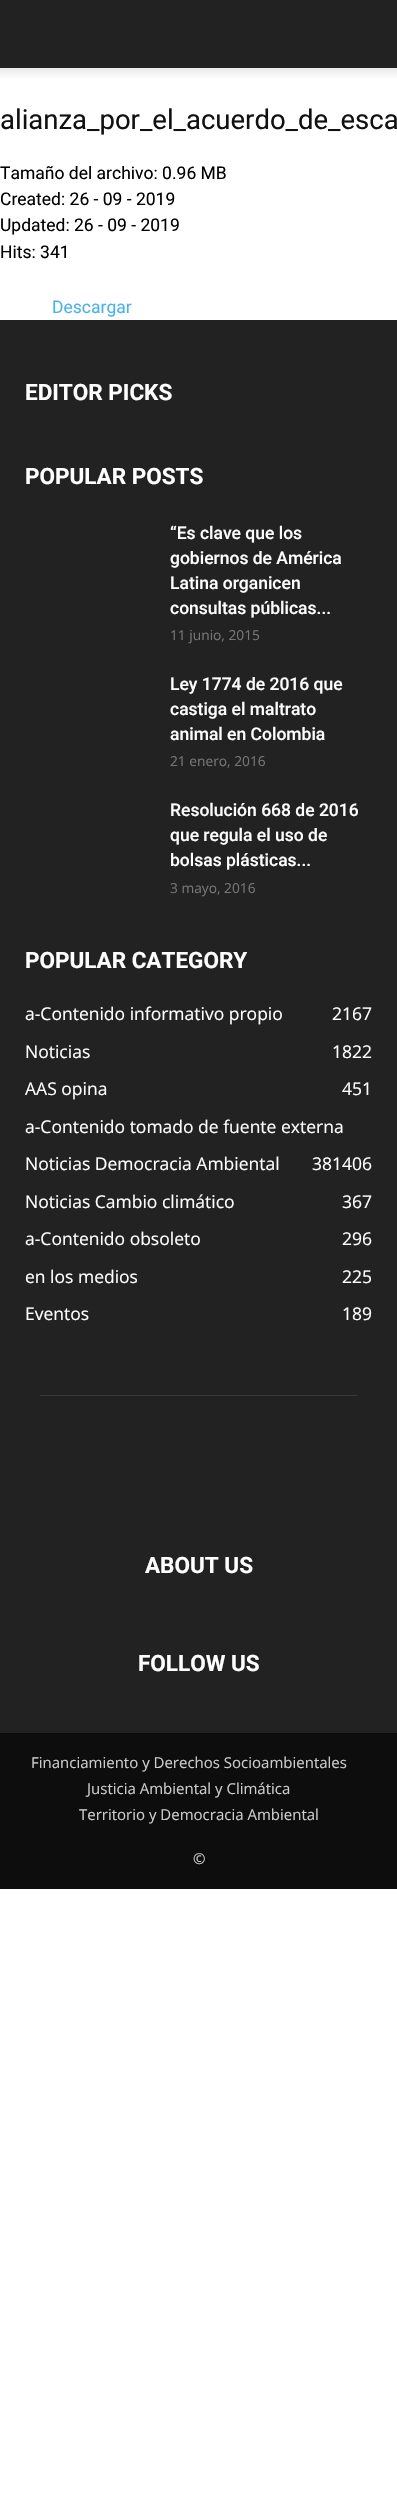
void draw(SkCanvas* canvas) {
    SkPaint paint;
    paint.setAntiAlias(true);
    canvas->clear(0xFFFFFFFF);
    paint.setColor(0xFF222222);
    canvas->drawRect(SkRect::MakeXYWH(0, 0, 397, 68), paint);
    canvas->drawImageRect(SkImages::DeferredFromEncodedData(SkData::MakeFromFileName("img1.png")), SkRect::MakeXYWH(0, 68, 397, 10), SkSamplingOptions());
    SkFont font1(fontMgr->matchFamilyStyle("Roboto", SkFontStyle::Normal()), 27.5f);
    font1.setSubpixel(true);
    paint.setColor(0xFF111111);
    canvas->drawString("alianza_por_el_acuerdo_de_esca", 0, 129, font1, paint);
    SkFont font2(fontMgr->matchFamilyStyle("Roboto", SkFontStyle::Normal()), 17.5f);
    font2.setSubpixel(true);
    paint.setColor(0xFF000000);
    canvas->drawString("Tamaño del archivo: 0.96 MB", 0, 179, font2, paint);
    canvas->drawString("Created: 26 - 09 - 2019", 0, 205, font2, paint);
    canvas->drawString("Updated: 26 - 09 - 2019", 0, 231, font2, paint);
    canvas->drawString("Hits: 341", 0, 258, font2, paint);
    paint.setColor(0xFF4DB2EC);
    canvas->drawString("Descargar", 52, 313, font2, paint);
    paint.setColor(0xFF222222);
    canvas->drawRect(SkRect::MakeXYWH(0, 320, 397, 1413), paint);
    SkFont font3(fontMgr->matchFamilyStyle("Roboto", SkFontStyle::Bold()), 22.5f);
    font3.setSubpixel(true);
    paint.setColor(0xFFFFFFFF);
    canvas->drawString("EDITOR PICKS", 25, 400, font3, paint);
    canvas->drawString("POPULAR POSTS", 25, 484, font3, paint);
    SkFont font4(fontMgr->matchFamilyStyle("Roboto", SkFontStyle(500, SkFontStyle::kNormal_Width, SkFontStyle::kUpright_Slant)), 17.5f);
    font4.setSubpixel(true);
    canvas->drawString("“Es clave que los", 170, 539, font4, paint);
    canvas->drawString("gobiernos de América", 170, 564, font4, paint);
    canvas->drawString("Latina organicen", 170, 589, font4, paint);
    canvas->drawString("consultas públicas...", 170, 614, font4, paint);
    SkFont font5(fontMgr->matchFamilyStyle("Open Sans", SkFontStyle::Normal()), 13.75f);
    font5.setSubpixel(true);
    paint.setColor(0xFF767676);
    canvas->drawString("11 junio, 2015", 170, 640, font5, paint);
    paint.setColor(0xFFFFFFFF);
    canvas->drawString("Ley 1774 de 2016 que", 170, 690, font4, paint);
    canvas->drawString("castiga el maltrato", 170, 715, font4, paint);
    canvas->drawString("animal en Colombia", 170, 740, font4, paint);
    paint.setColor(0xFF767676);
    canvas->drawString("21 enero, 2016", 170, 766, font5, paint);
    paint.setColor(0xFFFFFFFF);
    canvas->drawString("Resolución 668 de 2016", 170, 816, font4, paint);
    canvas->drawString("que regula el uso de", 170, 841, font4, paint);
    canvas->drawString("bolsas plásticas...", 170, 866, font4, paint);
    paint.setColor(0xFF767676);
    canvas->drawString("3 mayo, 2016", 170, 893, font5, paint);
    paint.setColor(0xFFFFFFFF);
    canvas->drawString("POPULAR CATEGORY", 25, 968, font3, paint);
    SkFont font6(fontMgr->matchFamilyStyle("Open Sans", SkFontStyle::Normal()), 17.5f);
    font6.setSubpixel(true);
    canvas->drawString("a-Contenido informativo propio", 25, 1020, font6, paint);
    canvas->drawString("2167", 332, 1020, font6, paint);
    canvas->drawString("Noticias", 25, 1058, font6, paint);
    canvas->drawString("1822", 332, 1058, font6, paint);
    canvas->drawString("AAS opina", 25, 1095, font6, paint);
    canvas->drawString("451", 342, 1095, font6, paint);
    canvas->drawString("a-Contenido tomado de fuente externa", 25, 1133, font6, paint);
    canvas->drawString("406", 342, 1170, font6, paint);
    canvas->drawString("Noticias Democracia Ambiental", 25, 1170, font6, paint);
    canvas->drawString("381", 312, 1170, font6, paint);
    canvas->drawString("Noticias Cambio climático", 25, 1208, font6, paint);
    canvas->drawString("367", 342, 1208, font6, paint);
    canvas->drawString("a-Contenido obsoleto", 25, 1245, font6, paint);
    canvas->drawString("296", 342, 1245, font6, paint);
    canvas->drawString("en los medios", 25, 1283, font6, paint);
    canvas->drawString("225", 342, 1283, font6, paint);
    canvas->drawString("Eventos", 25, 1320, font6, paint);
    canvas->drawString("189", 342, 1320, font6, paint);
    paint.setColor(0xFF383838);
    canvas->drawRect(SkRect::MakeXYWH(40, 1395, 318, 1), paint);
    paint.setColor(0xFFFFFFFF);
    canvas->drawString("ABOUT US", 145, 1573, font3, paint);
    canvas->drawString("FOLLOW US", 138, 1671, font3, paint);
    paint.setColor(0xFF0D0D0D);
    canvas->drawRect(SkRect::MakeXYWH(0, 1733, 397, 156), paint);
    SkFont font7(fontMgr->matchFamilyStyle("Open Sans", SkFontStyle::Normal()), 15);
    font7.setSubpixel(true);
    paint.setColor(0xFFCCCCCC);
    canvas->drawString("Financiamiento y Derechos Socioambientales", 31, 1768, font7, paint);
    canvas->drawString("Justicia Ambiental y Climática", 87, 1794, font7, paint);
    canvas->drawString("Territorio y Democracia Ambiental", 79, 1820, font7, paint);
    canvas->drawString("©", 193, 1864, font7, paint);
}
